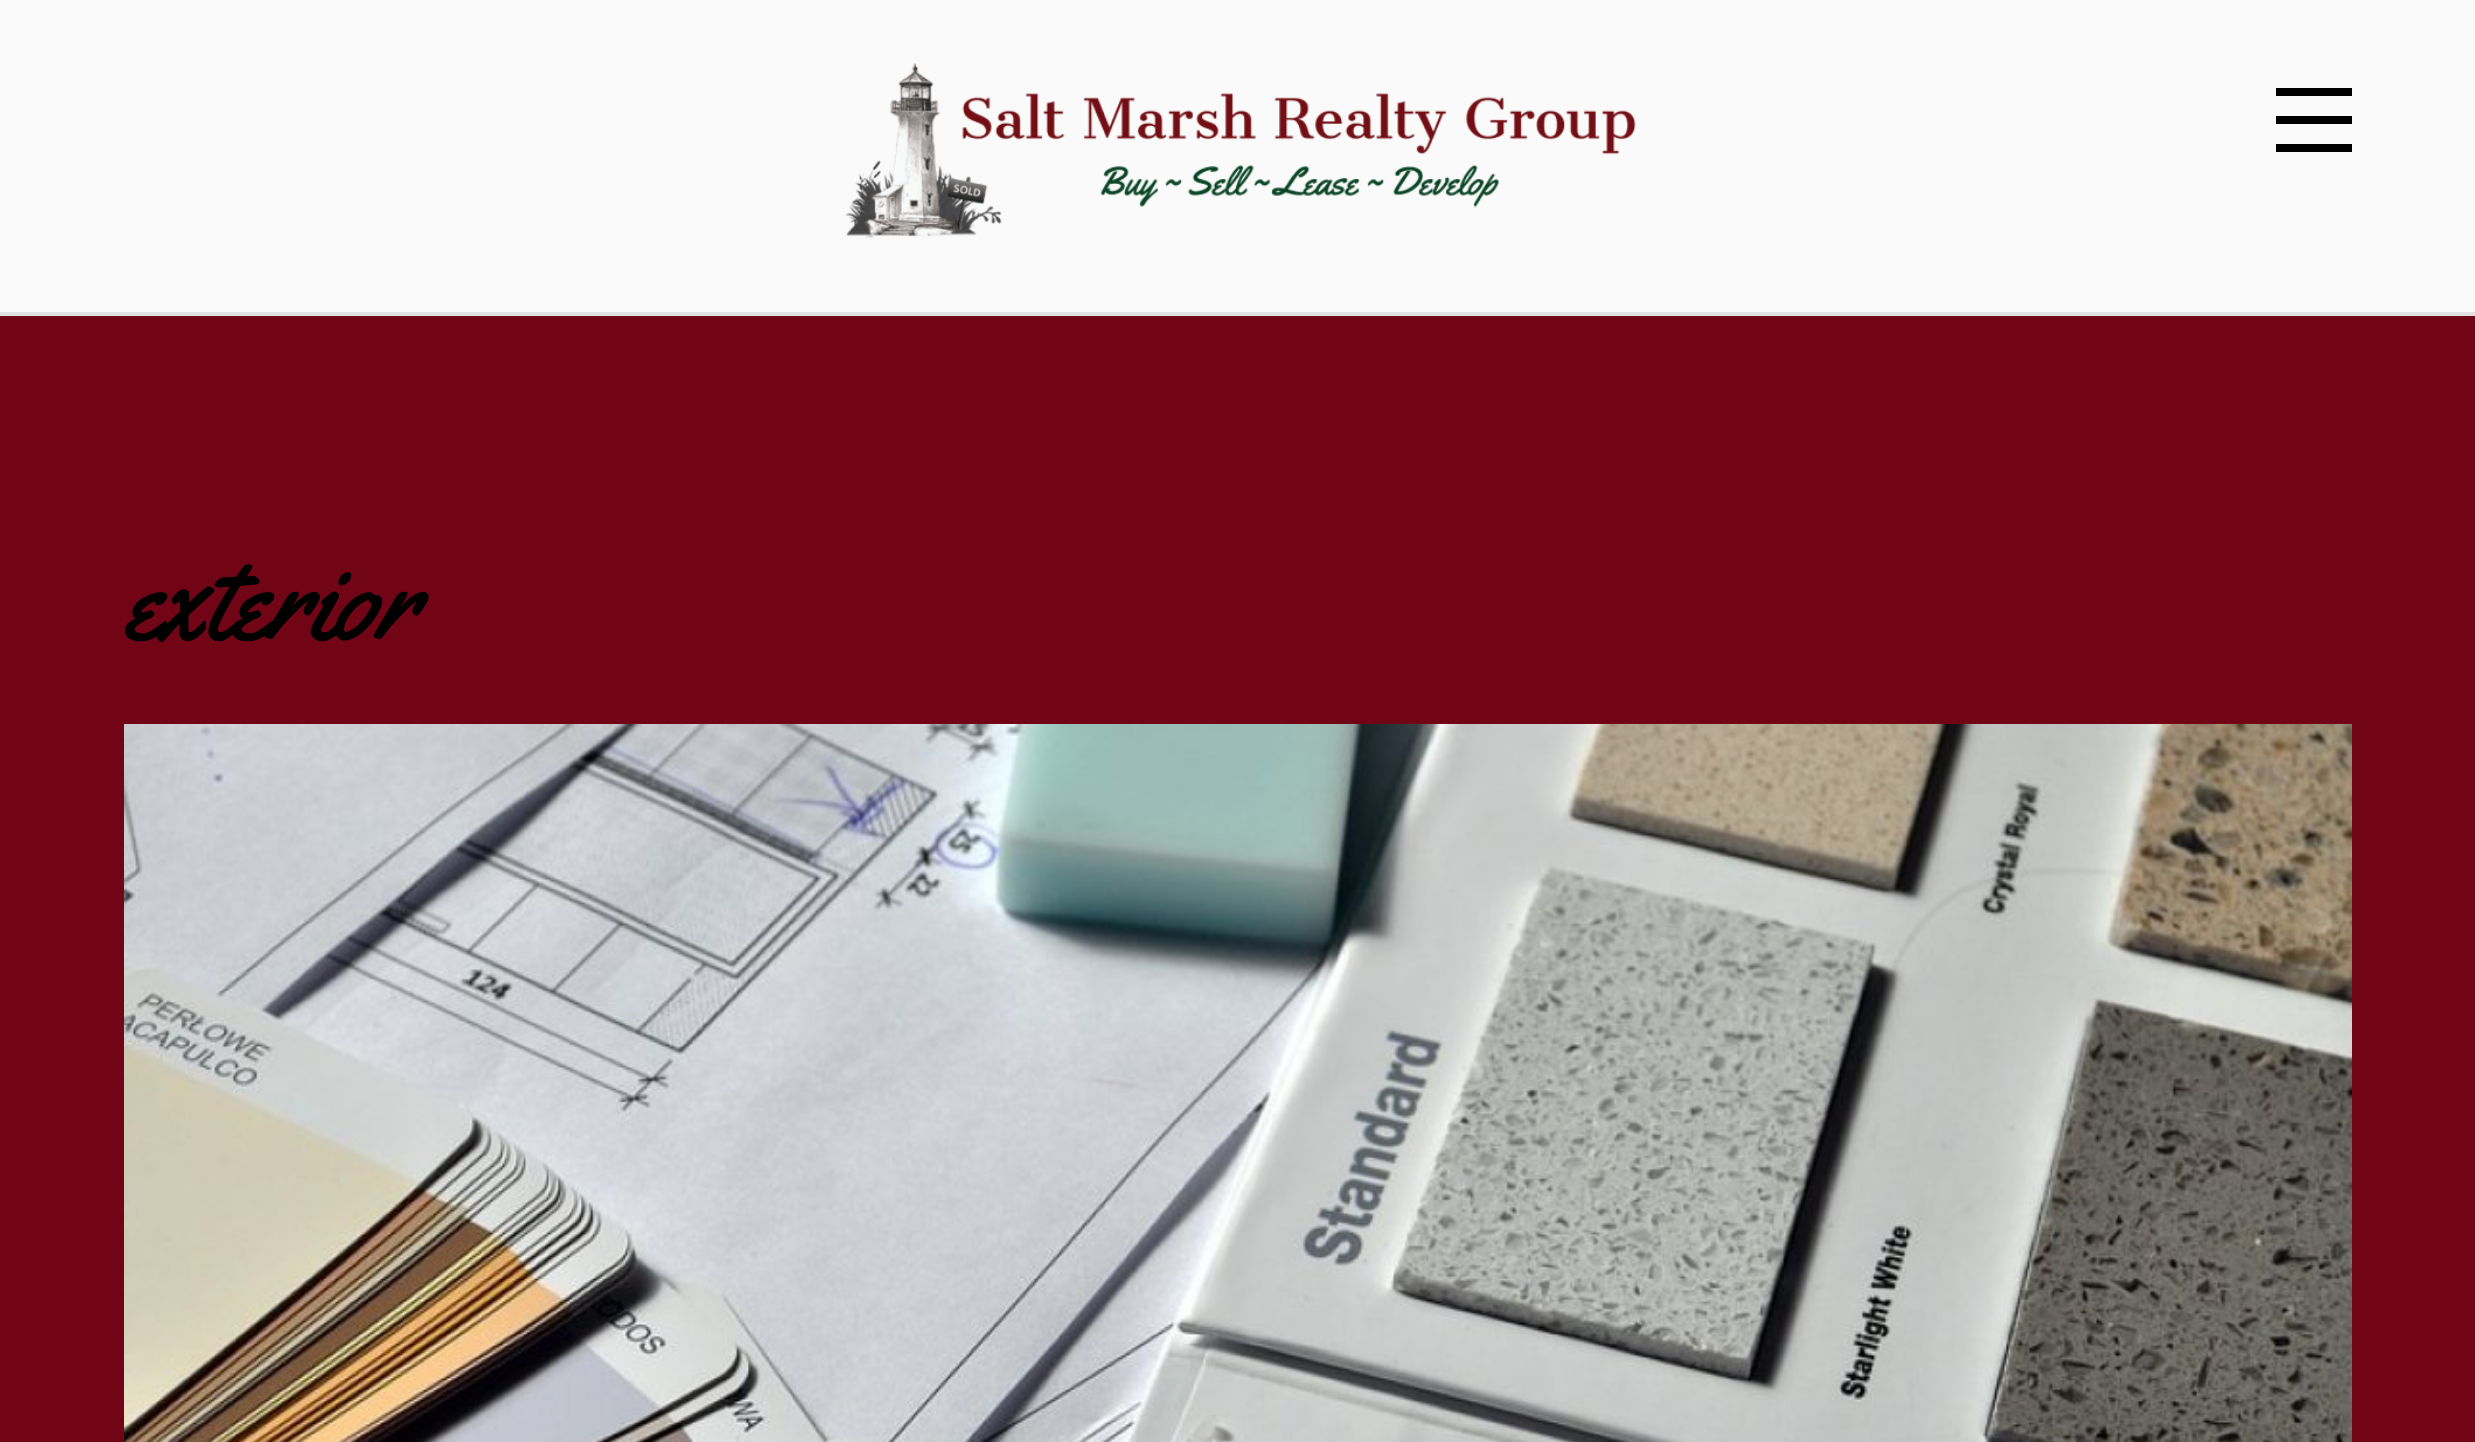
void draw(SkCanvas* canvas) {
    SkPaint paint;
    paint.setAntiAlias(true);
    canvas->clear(0xFF710516);
    paint.setColor(0xFFFAFAFA);
    canvas->drawRect(SkRect::MakeXYWH(0, 0, 2475, 312), paint);
    paint.setColor(0xFFE1E1E1);
    canvas->drawRect(SkRect::MakeXYWH(0, 312, 2475, 4), paint);
    canvas->drawImageRect(SkImages::DeferredFromEncodedData(SkData::MakeFromFileName("img1.png")), SkRect::MakeXYWH(845, 63, 791, 176), SkSamplingOptions());
    paint.setColor(0xFF000000);
    canvas->drawRect(SkRect::MakeXYWH(2276, 144, 76, 8), paint);
    canvas->drawRect(SkRect::MakeXYWH(2276, 88, 76, 8), paint);
    canvas->drawRect(SkRect::MakeXYWH(2276, 116, 76, 8), paint);
    SkFont font1(fontMgr->matchFamilyStyle("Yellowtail", SkFontStyle::Normal()), 118.5f);
    font1.setSubpixel(true);
    canvas->drawString("exterior", 124, 639, font1, paint);
    canvas->drawImageRect(SkImages::DeferredFromEncodedData(SkData::MakeFromFileName("img2.png")), SkRect::MakeXYWH(124, 724, 2228, 718), SkSamplingOptions());
}
